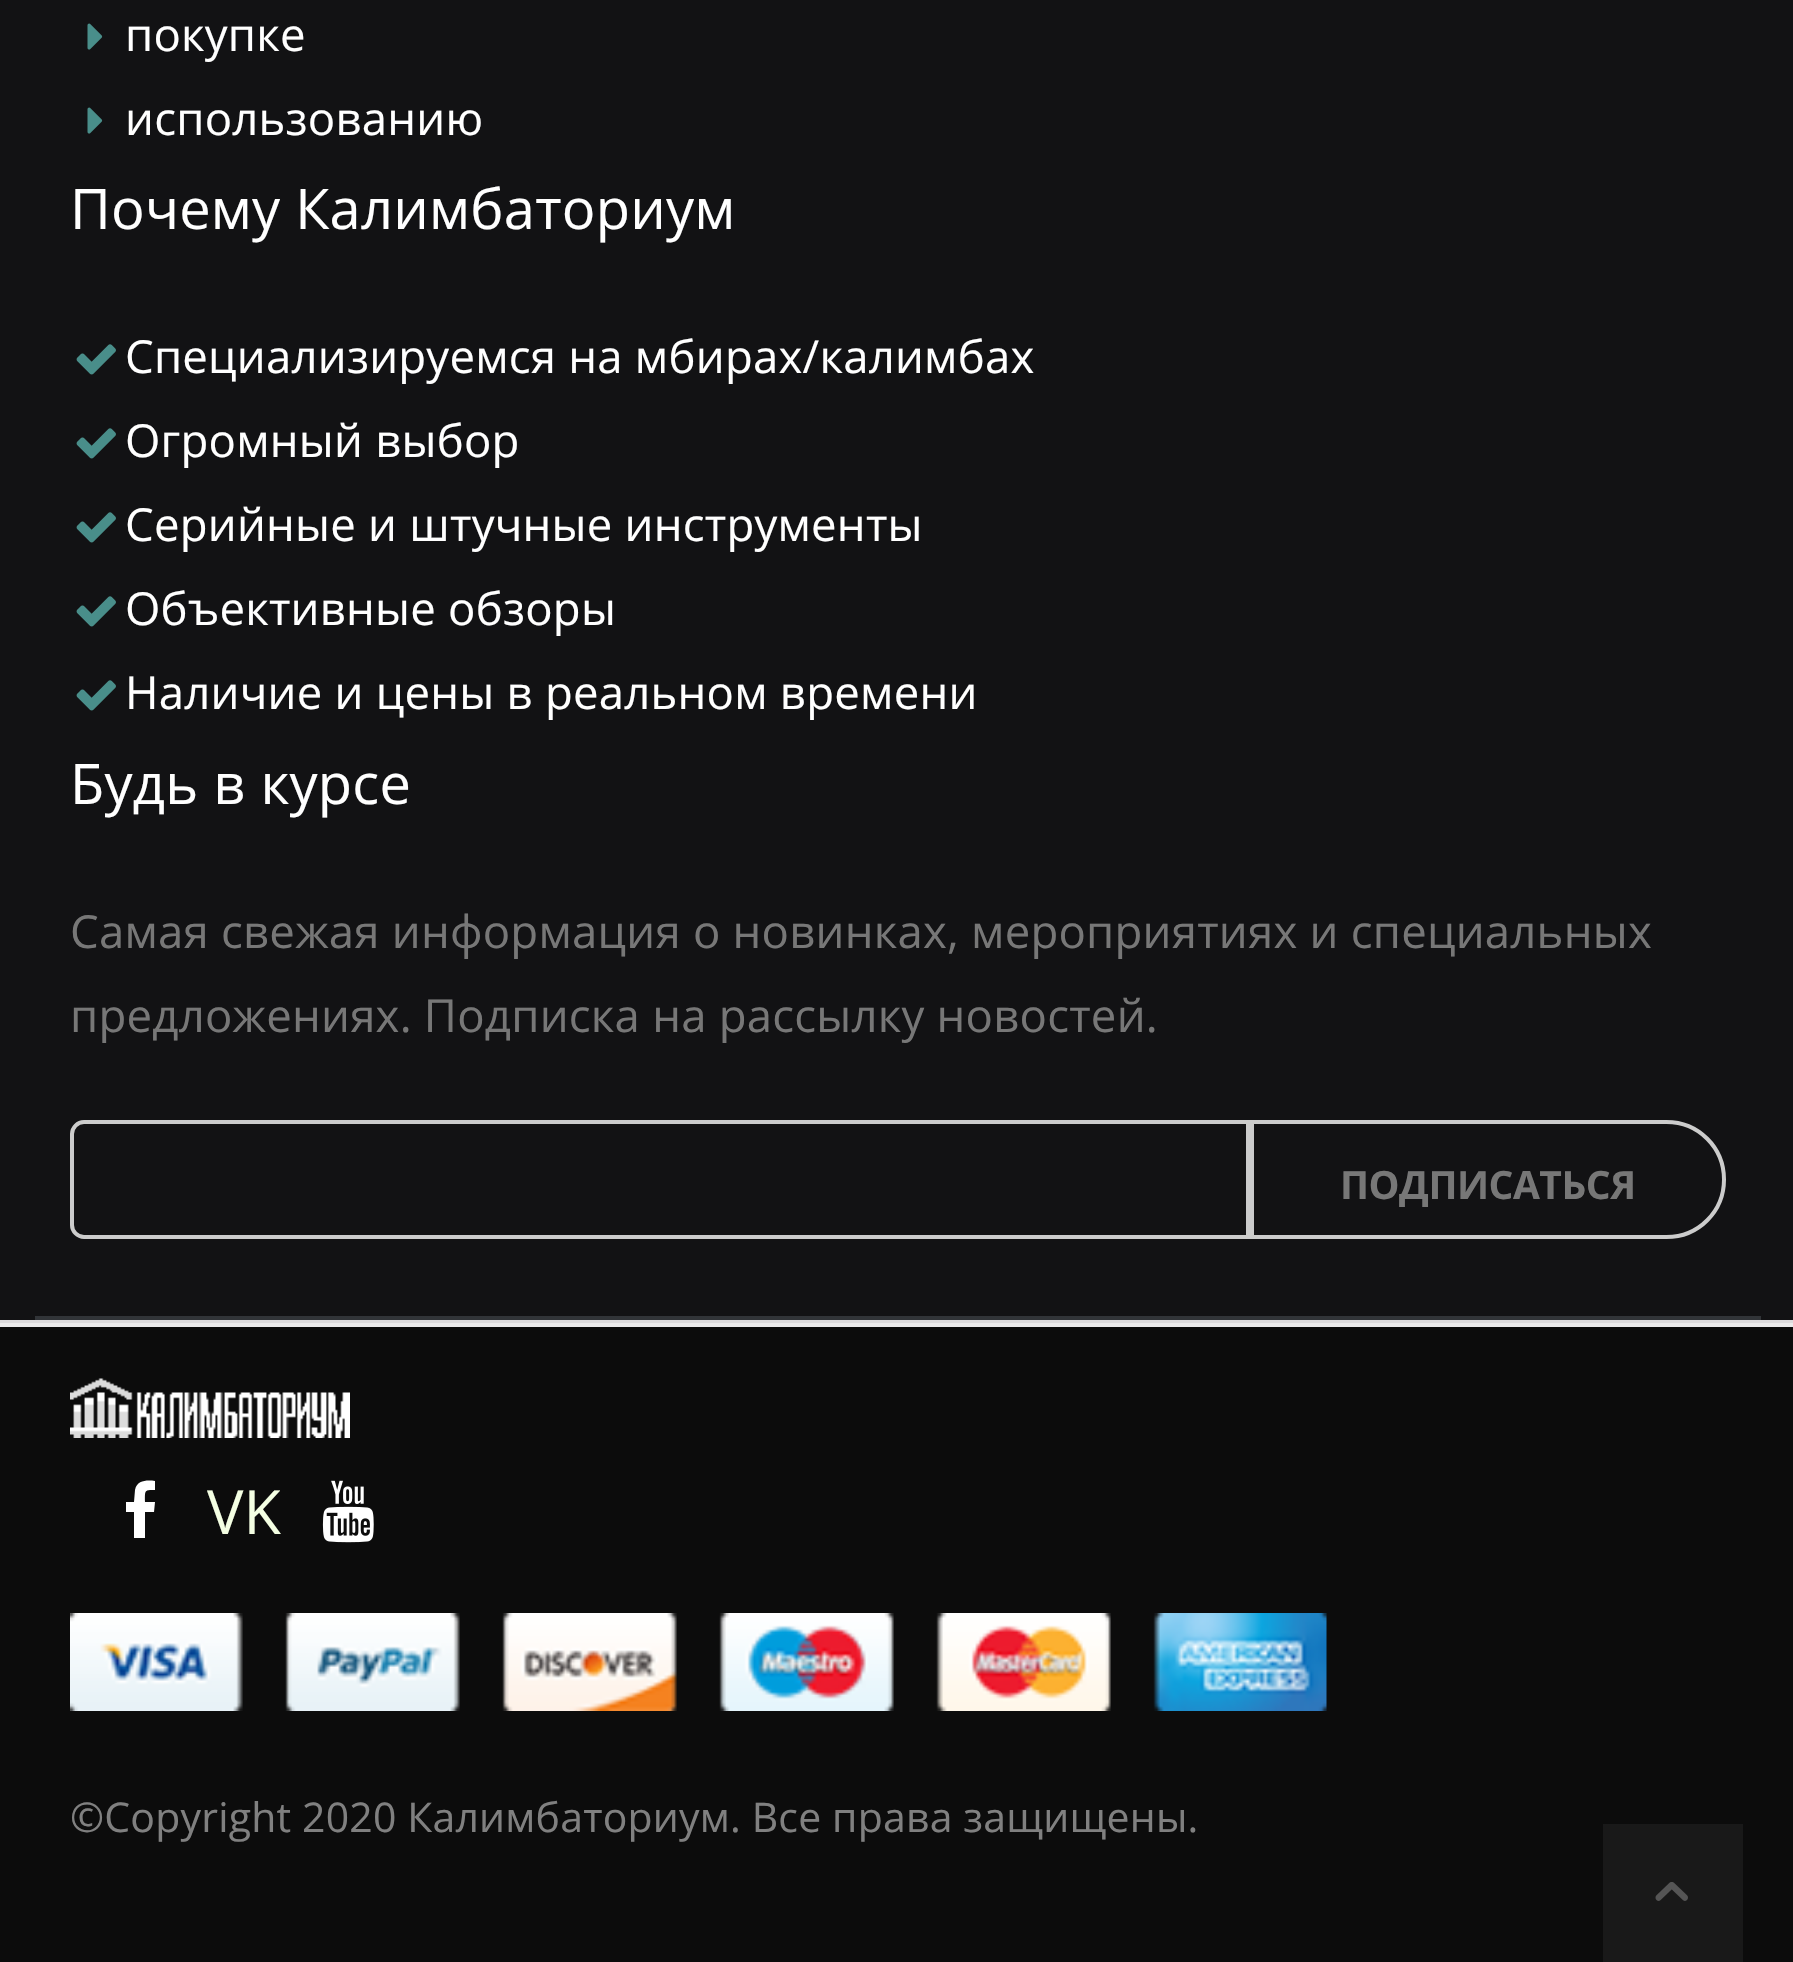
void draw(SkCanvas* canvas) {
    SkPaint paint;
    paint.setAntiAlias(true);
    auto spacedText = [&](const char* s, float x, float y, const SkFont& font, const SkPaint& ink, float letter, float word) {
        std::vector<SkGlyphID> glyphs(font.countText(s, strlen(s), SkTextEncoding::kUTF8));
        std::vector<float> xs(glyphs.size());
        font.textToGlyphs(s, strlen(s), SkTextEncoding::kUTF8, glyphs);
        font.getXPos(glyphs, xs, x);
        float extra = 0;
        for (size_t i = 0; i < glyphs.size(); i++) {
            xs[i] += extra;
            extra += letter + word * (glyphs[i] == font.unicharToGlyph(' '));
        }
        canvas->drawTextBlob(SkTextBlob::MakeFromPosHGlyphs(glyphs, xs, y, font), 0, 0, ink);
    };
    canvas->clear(0xFF121214);
    paint.setColor(0xFFDDDBDD);
    canvas->drawRect(SkRect::MakeXYWH(0, 1320, 1793, 3), paint);
    canvas->drawImageRect(SkImages::DeferredFromEncodedData(SkData::MakeFromFileName("img1.png")), SkRect::MakeXYWH(87, 23, 16, 27), SkSamplingOptions());
    SkFont font1(fontMgr->matchFamilyStyle("Open Sans", SkFontStyle::Normal()), 45.5f);
    font1.setSubpixel(true);
    paint.setColor(0xFFFFFFFF);
    spacedText("покупке", 125, 51, font1, paint, 0.23f, 0);
    canvas->drawImageRect(SkImages::DeferredFromEncodedData(SkData::MakeFromFileName("img1.png")), SkRect::MakeXYWH(87, 107, 16, 27), SkSamplingOptions());
    spacedText("использованию", 125, 135, font1, paint, 0.23f, 0);
    SkFont font2(fontMgr->matchFamilyStyle("Open Sans", SkFontStyle::Normal()), 56);
    font2.setSubpixel(true);
    spacedText("Почему Калимбаториум", 70, 229, font2, paint, 0.23f, 0);
    canvas->drawImageRect(SkImages::DeferredFromEncodedData(SkData::MakeFromFileName("img2.png")), SkRect::MakeXYWH(76, 344, 40, 31), SkSamplingOptions());
    spacedText("Специализируемся на мбирах/калимбах", 125, 373, font1, paint, 0.23f, 0);
    canvas->drawImageRect(SkImages::DeferredFromEncodedData(SkData::MakeFromFileName("img2.png")), SkRect::MakeXYWH(76, 428, 40, 31), SkSamplingOptions());
    spacedText("Огромный выбор", 125, 457, font1, paint, 0.23f, 0);
    canvas->drawImageRect(SkImages::DeferredFromEncodedData(SkData::MakeFromFileName("img2.png")), SkRect::MakeXYWH(76, 512, 40, 31), SkSamplingOptions());
    spacedText("Серийные и штучные инструменты", 125, 541, font1, paint, 0.23f, 0);
    canvas->drawImageRect(SkImages::DeferredFromEncodedData(SkData::MakeFromFileName("img2.png")), SkRect::MakeXYWH(76, 596, 40, 31), SkSamplingOptions());
    spacedText("Объективные обзоры", 125, 625, font1, paint, 0.23f, 0);
    canvas->drawImageRect(SkImages::DeferredFromEncodedData(SkData::MakeFromFileName("img2.png")), SkRect::MakeXYWH(76, 680, 40, 31), SkSamplingOptions());
    spacedText("Наличие и цены в реальном времени", 125, 709, font1, paint, 0.23f, 0);
    spacedText("Будь в курсе", 70, 804, font2, paint, 0.23f, 0);
    paint.setColor(0xFF777777);
    spacedText("Самая свежая информация о новинках, мероприятиях и специальных", 70, 948, font1, paint, 0.23f, 0);
    spacedText("предложениях. Подписка на рассылку новостей.", 70, 1032, font1, paint, 0.23f, 0);
    paint.setStyle(SkPaint::kStroke_Style);
    paint.setStrokeWidth(4);
    paint.setColor(0xFFCCCCCC);
    canvas->drawPath(SkPathBuilder().moveTo(84, 1122).lineTo(1248, 1122).lineTo(1248, 1237).lineTo(84, 1237).cubicTo(77.5f, 1237, 72, 1231.5f, 72, 1225).lineTo(72, 1134).cubicTo(72, 1127.5f, 77.5f, 1122, 84, 1122).close().detach(), paint);
    canvas->drawPath(SkPathBuilder().moveTo(1252, 1122).lineTo(1666.5f, 1122).cubicTo(1698.5f, 1122, 1724, 1147.5f, 1724, 1179.5f).cubicTo(1724, 1211.5f, 1698.5f, 1237, 1666.5f, 1237).lineTo(1252, 1237).close().detach(), paint);
    SkFont font3(fontMgr->matchFamilyStyle("Open Sans", SkFontStyle::Bold()), 39);
    font3.setSubpixel(true);
    paint.setStyle(SkPaint::kFill_Style);
    paint.setColor(0xFF777777);
    spacedText("ПОДПИСАТЬСЯ", 1340, 1199, font3, paint, -0.5f, 0);
    paint.setColor(0xFF313438);
    canvas->drawRect(SkRect::MakeXYWH(35, 1316, 1726, 4), paint);
    paint.setColor(0xFF0C0C0C);
    canvas->drawRect(SkRect::MakeXYWH(0, 1327, 1793, 635), paint);
    paint.setColor(0xFFECEBEC);
    canvas->drawRect(SkRect::MakeXYWH(0, 1323, 1793, 4), paint);
    canvas->drawImageRect(SkImages::DeferredFromEncodedData(SkData::MakeFromFileName("img3.png")), SkRect::MakeXYWH(70, 1378, 280, 60), SkSamplingOptions());
    paint.setColor(0xFFFFFFFF);
    canvas->drawPath(SkPathBuilder().moveTo(155, 1481).lineTo(155, 1490).cubicTo(144, 1490, 145, 1490, 145, 1502).lineTo(155, 1502).lineTo(154, 1512).lineTo(145, 1512).lineTo(145, 1538).lineTo(134, 1538).lineTo(134, 1512).lineTo(126, 1512).lineTo(126, 1502).lineTo(134, 1502).lineTo(135, 1490).cubicTo(137, 1480, 147, 1480, 155, 1481).close().detach(), paint);
    SkFont font4(fontMgr->matchFamilyStyle("Open Sans", SkFontStyle::Normal()), 61);
    font4.setSubpixel(true);
    paint.setColor(0xFFF4FFE3);
    spacedText("VK", 207, 1534, font4, paint, 0.23f, 0);
    canvas->drawImageRect(SkImages::DeferredFromEncodedData(SkData::MakeFromFileName("img4.png")), SkRect::MakeXYWH(322, 1480, 52, 63), SkSamplingOptions());
    canvas->drawImageRect(SkImages::DeferredFromEncodedData(SkData::MakeFromFileName("img5.png")), SkRect::MakeXYWH(70, 1613, 1257, 98), SkSamplingOptions());
    SkFont font5(fontMgr->matchFamilyStyle("Open Sans", SkFontStyle::Normal()), 40.95f);
    font5.setSubpixel(true);
    paint.setColor(0xFF808080);
    spacedText("©Copyright 2020 Калимбаториум. Все права защищены.", 70, 1832, font5, paint, 0.23f, -0.25f);
    paint.setColor(0xFF191919);
    canvas->drawRect(SkRect::MakeXYWH(1603, 1824, 140, 138), paint);
    canvas->drawImageRect(SkImages::DeferredFromEncodedData(SkData::MakeFromFileName("img6.png")), SkRect::MakeXYWH(1655, 1882, 33, 19), SkSamplingOptions());
}
